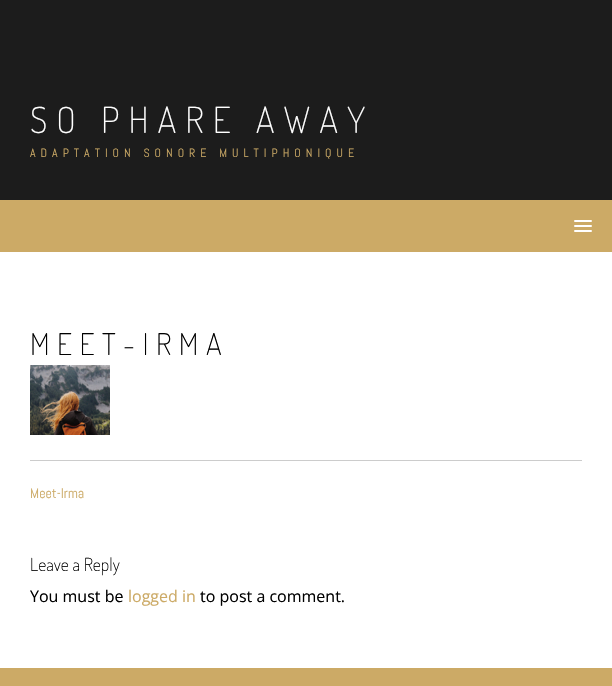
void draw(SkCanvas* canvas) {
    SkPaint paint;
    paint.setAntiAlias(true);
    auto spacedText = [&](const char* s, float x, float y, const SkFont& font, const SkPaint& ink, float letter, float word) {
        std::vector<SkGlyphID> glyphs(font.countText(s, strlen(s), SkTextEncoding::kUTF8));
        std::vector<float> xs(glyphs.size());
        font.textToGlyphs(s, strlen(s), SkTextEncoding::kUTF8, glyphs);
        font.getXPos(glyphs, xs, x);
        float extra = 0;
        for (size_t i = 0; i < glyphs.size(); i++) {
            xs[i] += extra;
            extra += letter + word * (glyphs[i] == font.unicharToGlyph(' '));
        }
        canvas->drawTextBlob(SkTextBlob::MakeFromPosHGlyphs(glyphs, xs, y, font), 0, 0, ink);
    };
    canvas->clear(0xFFFFFFFF);
    paint.setColor(0xFF1C1C1C);
    canvas->drawRect(SkRect::MakeXYWH(0, 0, 612, 200), paint);
    SkFont font1(fontMgr->matchFamilyStyle("Dosis", SkFontStyle(200, SkFontStyle::kNormal_Width, SkFontStyle::kUpright_Slant)), 36);
    font1.setSubpixel(true);
    paint.setColor(0xFFFFFFFF);
    spacedText("SO PHARE AWAY", 30, 133, font1, paint, 9, 0);
    SkFont font2(fontMgr->matchFamilyStyle("Abel", SkFontStyle::Normal()), 12);
    font2.setSubpixel(true);
    paint.setColor(0xFFCCAA66);
    spacedText("ADAPTATION SONORE MULTIPHONIQUE", 30, 157, font2, paint, 5, 0);
    canvas->drawRect(SkRect::MakeXYWH(0, 200, 612, 52), paint);
    paint.setColor(0xFFFFFFFF);
    canvas->drawRoundRect(SkRect::MakeXYWH(574, 220, 18, 2), 1, 1, paint);
    canvas->drawRoundRect(SkRect::MakeXYWH(574, 225, 18, 2), 1, 1, paint);
    canvas->drawRoundRect(SkRect::MakeXYWH(574, 230, 18, 2), 1, 1, paint);
    SkFont font3(fontMgr->matchFamilyStyle("Dosis", SkFontStyle(200, SkFontStyle::kNormal_Width, SkFontStyle::kUpright_Slant)), 30);
    font3.setSubpixel(true);
    paint.setColor(0xFF000000);
    spacedText("MEET-IRMA", 30, 355, font3, paint, 7.5f, 0);
    canvas->drawImageRect(SkImages::DeferredFromEncodedData(SkData::MakeFromFileName("img1.png")), SkRect::MakeXYWH(30, 365, 80, 70), SkSamplingOptions());
    paint.setColor(0xFFCCCCCC);
    canvas->drawRect(SkRect::MakeXYWH(30, 460, 552, 1), paint);
    SkFont font4(fontMgr->matchFamilyStyle("Abel", SkFontStyle::Normal()), 14);
    font4.setSubpixel(true);
    paint.setColor(0xFFCCAA66);
    canvas->drawString("Meet-Irma", 30, 498, font4, paint);
    SkFont font5(fontMgr->matchFamilyStyle("Dosis", SkFontStyle(200, SkFontStyle::kNormal_Width, SkFontStyle::kUpright_Slant)), 18);
    font5.setSubpixel(true);
    paint.setColor(0xFF000000);
    canvas->drawString("Leave a Reply", 30, 571, font5, paint);
    SkFont font6(fontMgr->matchFamilyStyle("Open Sans", SkFontStyle::Normal()), 16);
    font6.setSubpixel(true);
    canvas->drawString("You must be", 30, 602, font6, paint);
    paint.setColor(0xFFCCAA66);
    canvas->drawString("logged in", 128, 602, font6, paint);
    paint.setColor(0xFF000000);
    canvas->drawString("to post a comment.", 200, 602, font6, paint);
    paint.setColor(0xFFCCAA66);
    canvas->drawRect(SkRect::MakeXYWH(0, 668, 612, 18), paint);
}
